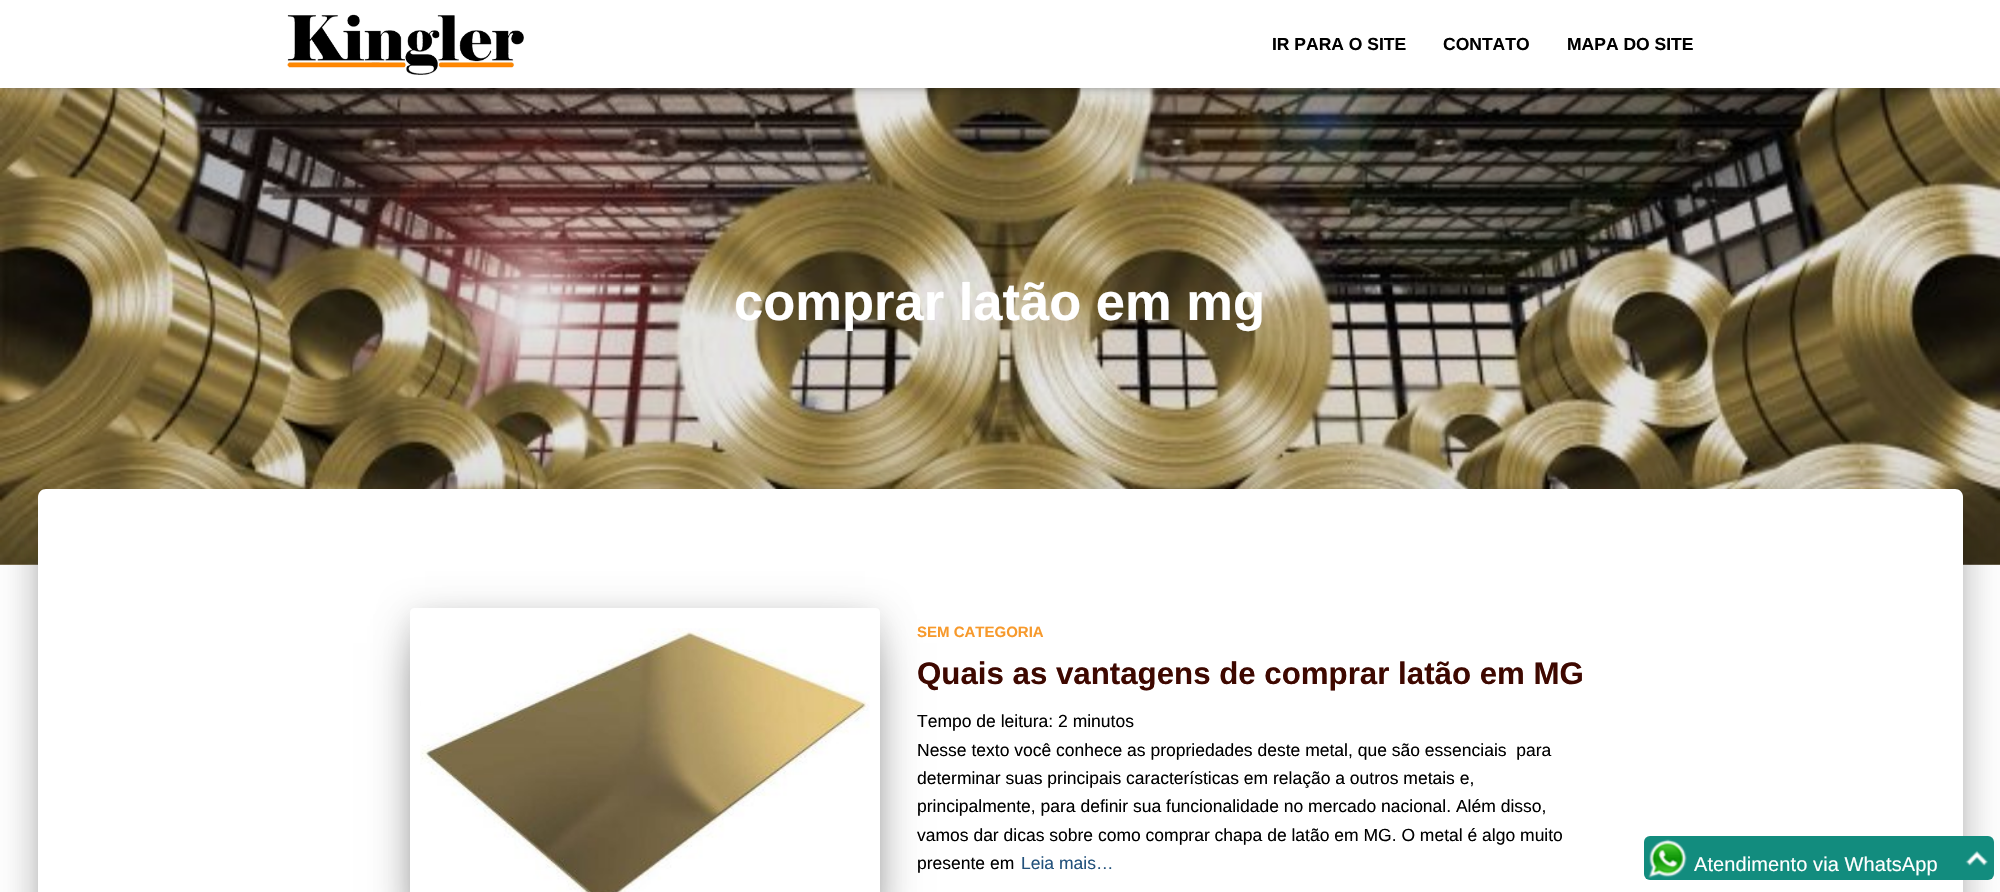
void draw(SkCanvas* canvas) {
    SkPaint paint;
    paint.setAntiAlias(true);
    auto spacedText = [&](const char* s, float x, float y, const SkFont& font, const SkPaint& ink, float letter, float word) {
        std::vector<SkGlyphID> glyphs(font.countText(s, strlen(s), SkTextEncoding::kUTF8));
        std::vector<float> xs(glyphs.size());
        font.textToGlyphs(s, strlen(s), SkTextEncoding::kUTF8, glyphs);
        font.getXPos(glyphs, xs, x);
        float extra = 0;
        for (size_t i = 0; i < glyphs.size(); i++) {
            xs[i] += extra;
            extra += letter + word * (glyphs[i] == font.unicharToGlyph(' '));
        }
        canvas->drawTextBlob(SkTextBlob::MakeFromPosHGlyphs(glyphs, xs, y, font), 0, 0, ink);
    };
    canvas->clear(0xFFFFFFFF);
    canvas->drawImageRect(SkImages::DeferredFromEncodedData(SkData::MakeFromFileName("img2.png")), SkRect::MakeXYWH(0, 88, 2000, 477), SkSamplingOptions());
    paint.setColor(0x1A000000);
    paint.setMaskFilter(SkMaskFilter::MakeBlur(kNormal_SkBlurStyle, 3));
    canvas->drawRect(SkRect::MakeXYWH(3, 8, 1995, 82), paint);
    paint.setMaskFilter(nullptr);
    paint.setColor(0x1F000000);
    paint.setMaskFilter(SkMaskFilter::MakeBlur(kNormal_SkBlurStyle, 6));
    canvas->drawRect(SkRect::MakeXYWH(0, 1, 2000, 88), paint);
    paint.setMaskFilter(nullptr);
    paint.setColor(0x6B000000);
    paint.setMaskFilter(SkMaskFilter::MakeBlur(kNormal_SkBlurStyle, 6));
    canvas->drawRect(SkRect::MakeXYWH(8, 9, 1985, 72), paint);
    paint.setMaskFilter(nullptr);
    paint.setColor(0xFFFFFFFF);
    canvas->drawRect(SkRect::MakeXYWH(0, 0, 2000, 88), paint);
    canvas->drawImageRect(SkImages::DeferredFromEncodedData(SkData::MakeFromFileName("img1.png")), SkRect::MakeXYWH(287, 14, 237, 61), SkSamplingOptions());
    SkFont font1(fontMgr->matchFamilyStyle("Liberation Sans", SkFontStyle::Bold()), 17.5f);
    font1.setSubpixel(true);
    paint.setColor(0xFF000000);
    canvas->drawString("IR PARA O SITE", 1272, 50, font1, paint);
    canvas->drawString("CONTATO", 1443, 50, font1, paint);
    canvas->drawString("MAPA DO SITE", 1567, 50, font1, paint);
    SkFont font2(fontMgr->matchFamilyStyle("Liberation Sans", SkFontStyle::Bold()), 52.5f);
    font2.setSubpixel(true);
    paint.setColor(0xFFFFFFFF);
    canvas->drawString("comprar latão em mg", 734, 320, font2, paint);
    paint.setColor(0x33000000);
    paint.setMaskFilter(SkMaskFilter::MakeBlur(kNormal_SkBlurStyle, 6));
    canvas->drawRoundRect(SkRect::MakeXYWH(44, 505, 1912, 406), 1, 1, paint);
    paint.setMaskFilter(nullptr);
    paint.setColor(0x1F000000);
    paint.setMaskFilter(SkMaskFilter::MakeBlur(kNormal_SkBlurStyle, 19));
    canvas->drawRoundRect(SkRect::MakeXYWH(31, 490, 1938, 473), 14, 14, paint);
    paint.setMaskFilter(nullptr);
    paint.setColor(0x24000000);
    paint.setMaskFilter(SkMaskFilter::MakeBlur(kNormal_SkBlurStyle, 15));
    canvas->drawRoundRect(SkRect::MakeXYWH(35, 506, 1930, 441), 10, 10, paint);
    paint.setMaskFilter(nullptr);
    paint.setColor(0xFFFFFFFF);
    canvas->drawPath(SkPathBuilder().moveTo(46, 489).lineTo(1955, 489).cubicTo(1959.5f, 489, 1963, 492.5f, 1963, 497).lineTo(1963, 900).lineTo(38, 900).lineTo(38, 497).cubicTo(38, 492.5f, 41.5f, 489, 46, 489).close().detach(), paint);
    canvas->save();
    canvas->clipPath(SkPathBuilder(SkPathFillType::kEvenOdd).moveTo(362, 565).lineTo(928, 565).lineTo(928, 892).lineTo(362, 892).close().moveTo(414, 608).lineTo(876, 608).cubicTo(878, 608, 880, 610, 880, 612).lineTo(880, 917).cubicTo(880, 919, 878, 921, 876, 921).lineTo(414, 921).cubicTo(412, 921, 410, 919, 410, 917).lineTo(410, 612).cubicTo(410, 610, 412, 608, 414, 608).close().detach(), true);
    paint.setColor(0x1F000000);
    paint.setMaskFilter(SkMaskFilter::MakeBlur(kNormal_SkBlurStyle, 15.5f));
    canvas->drawRoundRect(SkRect::MakeXYWH(410, 613, 470, 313), 4, 4, paint);
    paint.setMaskFilter(nullptr);
    canvas->restore();
    canvas->save();
    canvas->clipPath(SkPathBuilder(SkPathFillType::kEvenOdd).moveTo(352, 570).lineTo(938, 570).lineTo(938, 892).lineTo(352, 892).close().moveTo(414, 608).lineTo(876, 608).cubicTo(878, 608, 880, 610, 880, 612).lineTo(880, 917).cubicTo(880, 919, 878, 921, 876, 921).lineTo(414, 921).cubicTo(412, 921, 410, 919, 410, 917).lineTo(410, 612).cubicTo(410, 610, 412, 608, 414, 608).close().detach(), true);
    paint.setColor(0x8F000000);
    paint.setMaskFilter(SkMaskFilter::MakeBlur(kNormal_SkBlurStyle, 24));
    canvas->drawRect(SkRect::MakeXYWH(425, 643, 440, 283), paint);
    paint.setMaskFilter(nullptr);
    canvas->restore();
    canvas->drawImageRect(SkImages::DeferredFromEncodedData(SkData::MakeFromFileName("img3.png")), SkRect::MakeXYWH(420, 628, 450, 264), SkSamplingOptions());
    SkFont font3(fontMgr->matchFamilyStyle("Liberation Sans", SkFontStyle::Bold()), 15);
    font3.setSubpixel(true);
    paint.setColor(0xFFF7992B);
    canvas->drawString("SEM CATEGORIA", 917, 637, font3, paint);
    SkFont font4(fontMgr->matchFamilyStyle("Liberation Sans", SkFontStyle::Bold()), 31.25f);
    font4.setSubpixel(true);
    paint.setColor(0xFF3E0800);
    canvas->drawString("Quais as vantagens de comprar latão em MG", 917, 684, font4, paint);
    SkFont font5(fontMgr->matchFamilyStyle("Liberation Sans", SkFontStyle::Normal()), 17.5f);
    font5.setSubpixel(true);
    paint.setColor(0xFF000000);
    canvas->drawString("Tempo de leitura: 2 minutos", 917, 727, font5, paint);
    canvas->drawString("Nesse texto você conhece as propriedades deste metal, que são essenciais  para", 917, 756, font5, paint);
    canvas->drawString("determinar suas principais características em relação a outros metais e,", 917, 784, font5, paint);
    canvas->drawString("principalmente, para definir sua funcionalidade no mercado nacional. Além disso,", 917, 812, font5, paint);
    canvas->drawString("vamos dar dicas sobre como comprar chapa de latão em MG. O metal é algo muito", 917, 841, font5, paint);
    canvas->drawString("presente em", 917, 869, font5, paint);
    paint.setColor(0xFF23527C);
    canvas->drawString("Leia mais…", 1021, 869, font5, paint);
    paint.setColor(0xFF128C7E);
    canvas->drawRoundRect(SkRect::MakeXYWH(1644, 836, 350, 44), 6, 6, paint);
    canvas->drawImageRect(SkImages::DeferredFromEncodedData(SkData::MakeFromFileName("img4.png")), SkRect::MakeXYWH(1648, 839, 340, 39), SkSamplingOptions());
    SkFont font6(fontMgr->matchFamilyStyle("Liberation Sans", SkFontStyle::Normal()), 20);
    font6.setSubpixel(true);
    paint.setColor(0xFFFFFFFF);
    spacedText("Atendimento via WhatsApp", 1694, 871, font6, paint, 0.1f, 0);
}
